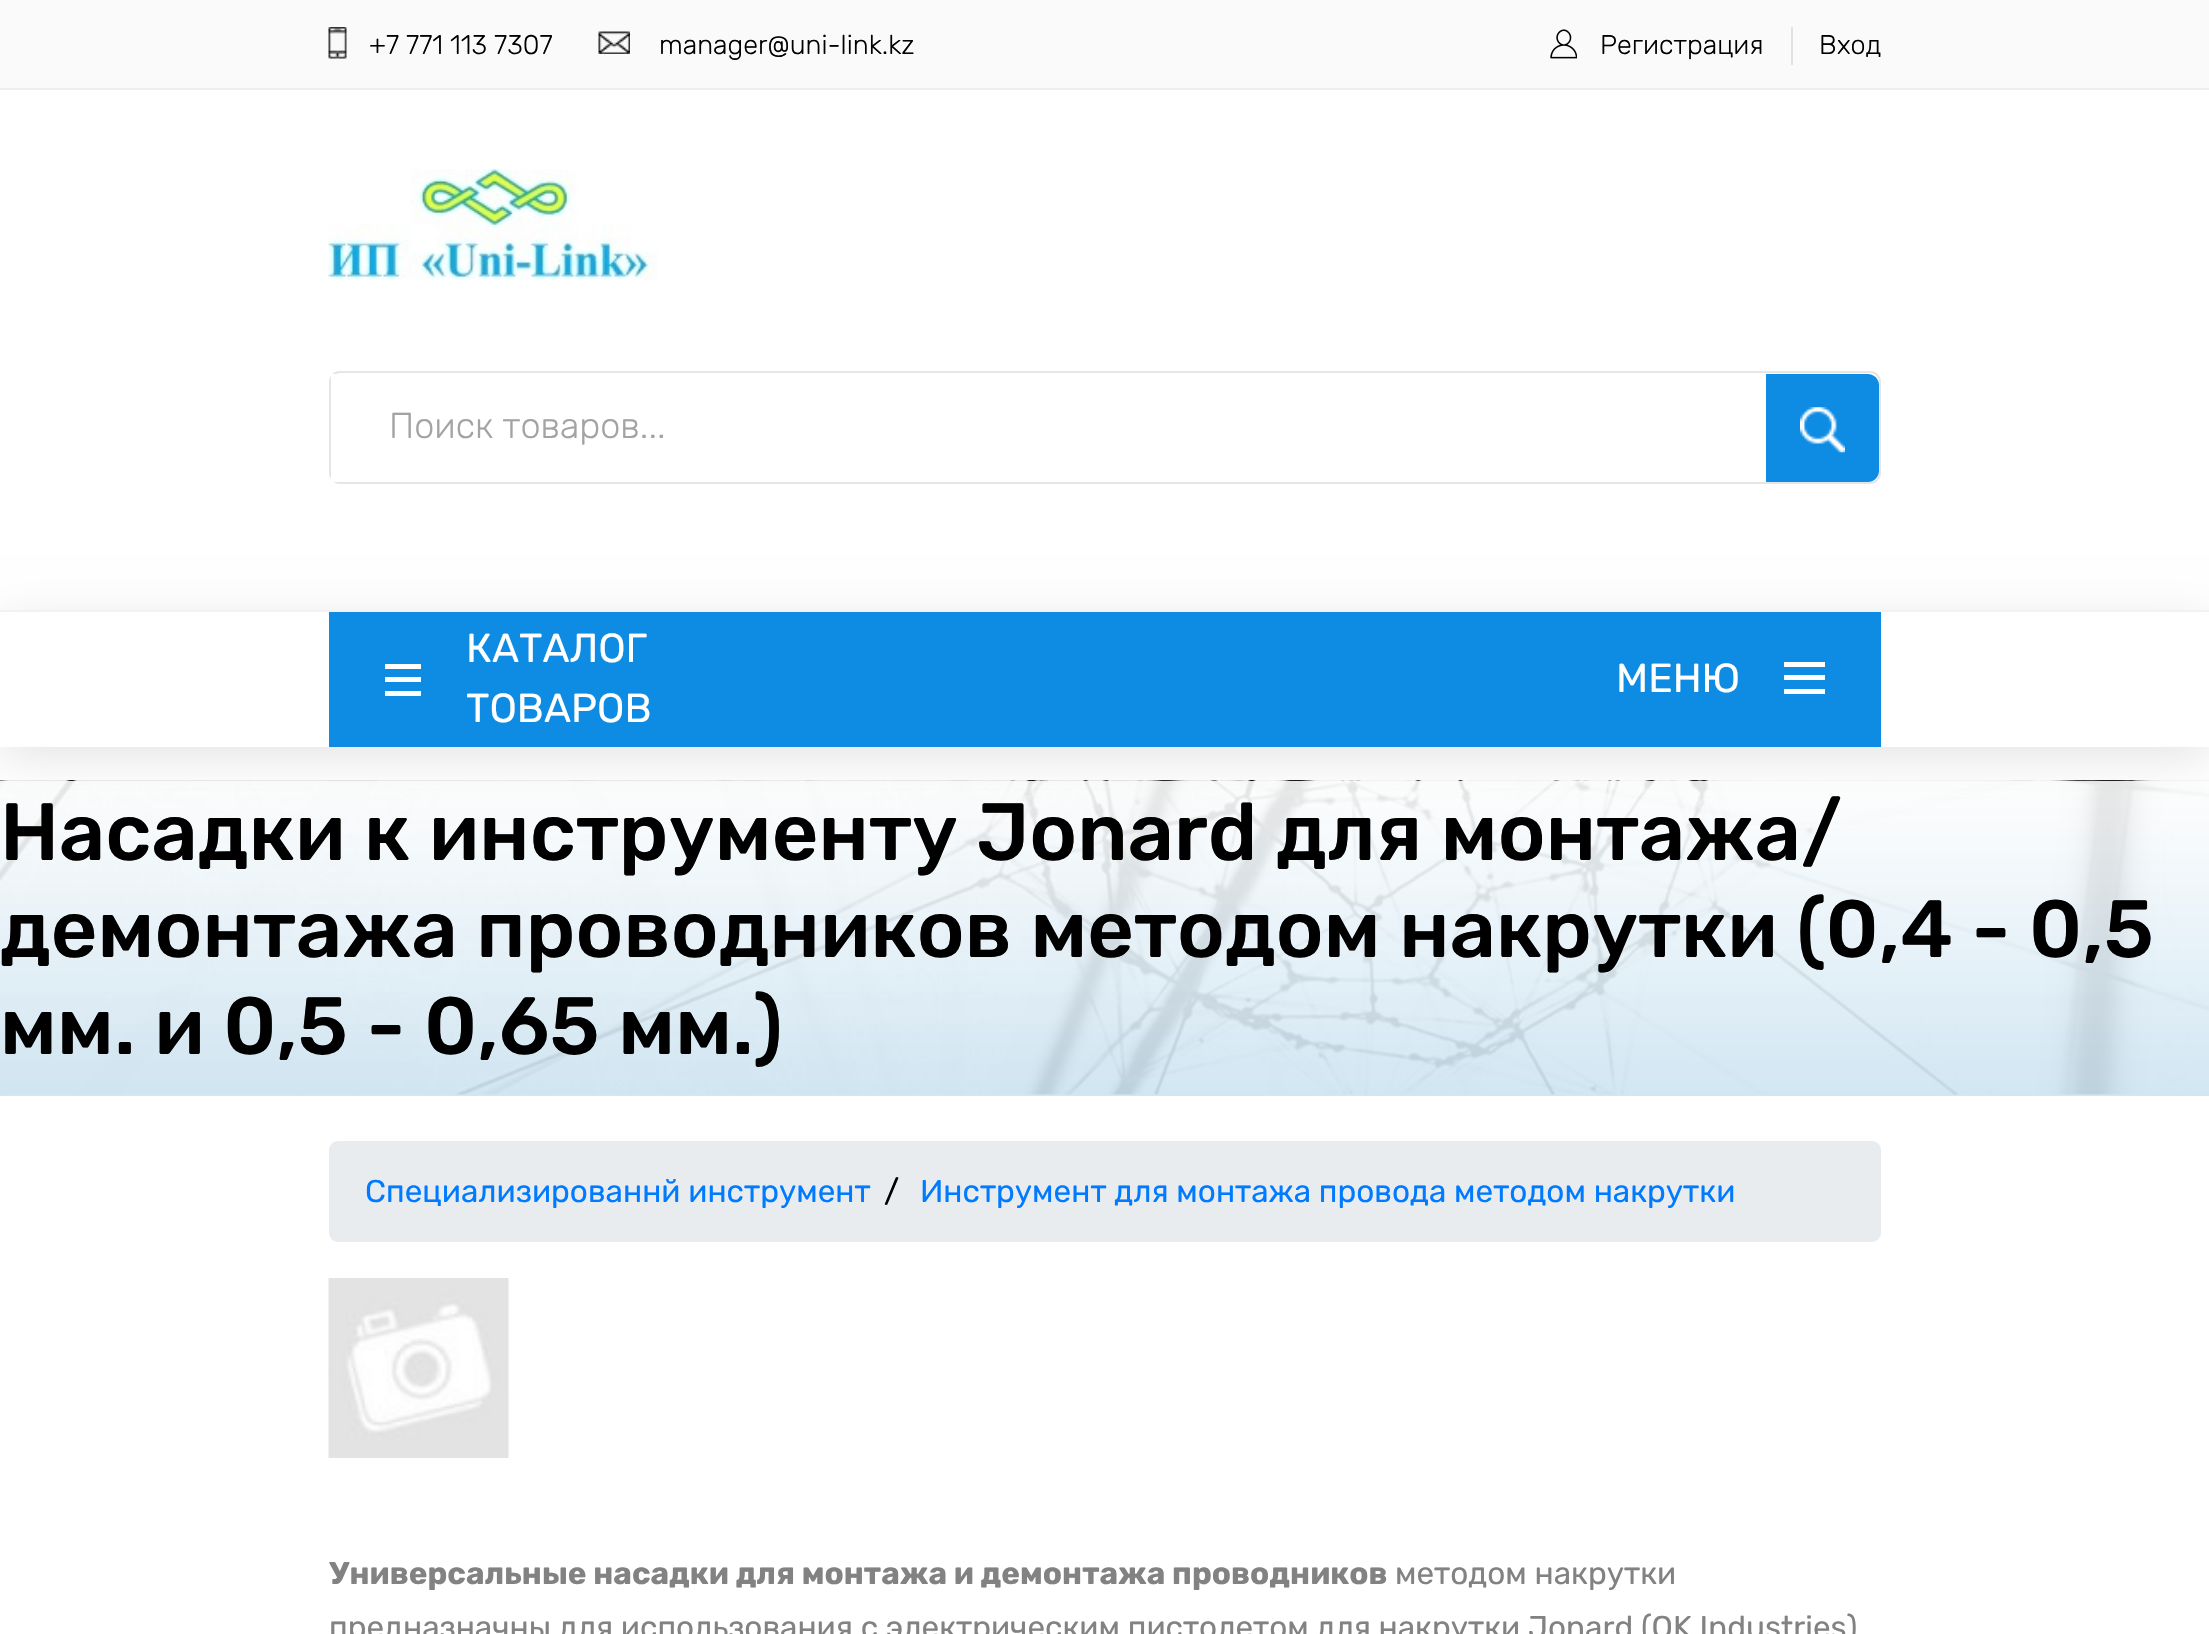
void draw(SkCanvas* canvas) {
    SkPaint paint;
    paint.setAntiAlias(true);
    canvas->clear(0xFFFFFFFF);
    paint.setColor(0xFFFAFAFA);
    canvas->drawRect(SkRect::MakeXYWH(0, 0, 2209, 88), paint);
    paint.setColor(0xFFEEEEEE);
    canvas->drawRect(SkRect::MakeXYWH(0, 88, 2209, 2), paint);
    canvas->drawImageRect(SkImages::DeferredFromEncodedData(SkData::MakeFromFileName("img1.png")), SkRect::MakeXYWH(328, 27, 19, 32), SkSamplingOptions());
    SkFont font1(fontMgr->matchFamilyStyle("Rubik", SkFontStyle(300, SkFontStyle::kNormal_Width, SkFontStyle::kUpright_Slant)), 27);
    font1.setSubpixel(true);
    paint.setColor(0xFF000000);
    canvas->drawString("+7 771 113 7307", 369, 54, font1, paint);
    canvas->drawImageRect(SkImages::DeferredFromEncodedData(SkData::MakeFromFileName("img2.png")), SkRect::MakeXYWH(598, 31, 32, 23), SkSamplingOptions());
    canvas->drawString("manager@uni-link.kz", 659, 54, font1, paint);
    canvas->drawImageRect(SkImages::DeferredFromEncodedData(SkData::MakeFromFileName("img3.png")), SkRect::MakeXYWH(1550, 29, 27, 30), SkSamplingOptions());
    canvas->drawString("Регистрация", 1600, 54, font1, paint);
    paint.setColor(0xFFE1E1E1);
    canvas->drawRect(SkRect::MakeXYWH(1791, 27, 2, 38), paint);
    paint.setColor(0xFF000000);
    canvas->drawString("Вход", 1819, 54, font1, paint);
    canvas->drawImageRect(SkImages::DeferredFromEncodedData(SkData::MakeFromFileName("img4.png")), SkRect::MakeXYWH(328, 169, 330, 112), SkSamplingOptions());
    paint.setStyle(SkPaint::kStroke_Style);
    paint.setStrokeWidth(2);
    paint.setColor(0xFFE5E5E5);
    canvas->drawRoundRect(SkRect::MakeXYWH(330, 372, 1550, 111), 10, 10, paint);
    paint.setStyle(SkPaint::kFill_Style);
    paint.setColor(0xFFFFFFFF);
    canvas->drawRect(SkRect::MakeXYWH(331, 374, 8, 108), paint);
    SkFont font2(fontMgr->matchFamilyStyle("Rubik", SkFontStyle(300, SkFontStyle::kNormal_Width, SkFontStyle::kUpright_Slant)), 36);
    font2.setSubpixel(true);
    paint.setColor(0xFFA3A3A3);
    canvas->drawString("Поиск товаров...", 389, 438, font2, paint);
    paint.setColor(0xFF0E8CE4);
    canvas->drawPath(SkPathBuilder().moveTo(1766, 374).lineTo(1868, 374).cubicTo(1874, 374, 1879, 379, 1879, 385).lineTo(1879, 471).cubicTo(1879, 477, 1874, 482, 1868, 482).lineTo(1766, 482).close().detach(), paint);
    canvas->drawImageRect(SkImages::DeferredFromEncodedData(SkData::MakeFromFileName("img5.png")), SkRect::MakeXYWH(1800, 407, 45, 46), SkSamplingOptions());
    canvas->drawImageRect(SkImages::DeferredFromEncodedData(SkData::MakeFromFileName("img6.png")), SkRect::MakeXYWH(0, 780, 2209, 315), SkSamplingOptions());
    {
        const SkColor colors[] = {0xE6FFFFFF, 0xE6CDE4F1};
        const float stops[] = {0, 1};
        const SkPoint ends[] = {{1105, 781}, {1105, 1096}};
        paint.setShader(SkGradientShader::MakeLinear(ends, colors, stops, 2, SkTileMode::kClamp));
        paint.setAlpha(255);
    }
    canvas->drawRect(SkRect::MakeXYWH(0, 781, 2209, 315), paint);
    canvas->save();
    canvas->clipPath(SkPathBuilder(SkPathFillType::kEvenOdd).moveTo(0, 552).lineTo(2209, 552).lineTo(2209, 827).lineTo(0, 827).close().moveTo(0, 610).lineTo(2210, 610).lineTo(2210, 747).lineTo(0, 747).close().detach(), true);
    paint.setShader(nullptr);
    paint.setColor(0x1A000000);
    paint.setMaskFilter(SkMaskFilter::MakeBlur(kNormal_SkBlurStyle, 22.5f));
    canvas->drawRect(SkRect::MakeXYWH(0, 621, 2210, 137), paint);
    paint.setMaskFilter(nullptr);
    canvas->restore();
    paint.setColor(0xFFF2F2F2);
    canvas->drawRect(SkRect::MakeXYWH(0, 610, 2209, 2), paint);
    paint.setColor(0xFF0E8CE4);
    canvas->drawRect(SkRect::MakeXYWH(329, 612, 1552, 135), paint);
    paint.setColor(0xFFFFFFFF);
    canvas->drawRect(SkRect::MakeXYWH(385, 664, 36, 5), paint);
    canvas->drawRect(SkRect::MakeXYWH(385, 677, 36, 5), paint);
    canvas->drawRect(SkRect::MakeXYWH(385, 691, 36, 5), paint);
    SkFont font3(fontMgr->matchFamilyStyle("Rubik", SkFontStyle::Normal()), 40.5f);
    font3.setSubpixel(true);
    canvas->drawString("КАТАЛОГ", 466, 662, font3, paint);
    canvas->drawString("ТОВАРОВ", 466, 722, font3, paint);
    canvas->drawString("МЕНЮ", 1616, 692, font3, paint);
    canvas->drawRect(SkRect::MakeXYWH(1784, 662, 41, 5), paint);
    canvas->drawRect(SkRect::MakeXYWH(1784, 675, 41, 5), paint);
    canvas->drawRect(SkRect::MakeXYWH(1784, 689, 41, 5), paint);
    SkFont font4(fontMgr->matchFamilyStyle("Rubik", SkFontStyle(500, SkFontStyle::kNormal_Width, SkFontStyle::kUpright_Slant)), 81);
    font4.setSubpixel(true);
    paint.setColor(0xFF000000);
    canvas->drawString("Насадки к инструменту Jonard для монтажа/", 0, 860, font4, paint);
    canvas->drawString("демонтажа проводников методом накрутки (0,4 - 0,5", 0, 957, font4, paint);
    canvas->drawString("мм. и 0,5 - 0,65 мм.)", 0, 1054, font4, paint);
    paint.setColor(0xFFE9ECEF);
    canvas->drawRoundRect(SkRect::MakeXYWH(329, 1141, 1552, 101), 9, 9, paint);
    SkFont font5(fontMgr->matchFamilyStyle("Rubik", SkFontStyle::Normal()), 31.5f);
    font5.setSubpixel(true);
    paint.setColor(0xFF007BFF);
    canvas->drawString("Специализированнй инструмент", 365, 1202, font5, paint);
    paint.setColor(0xFF000000);
    canvas->drawString("/", 884, 1202, font5, paint);
    paint.setColor(0xFF007BFF);
    canvas->drawString("Инструмент для монтажа провода методом накрутки", 920, 1202, font5, paint);
    canvas->drawImageRect(SkImages::DeferredFromEncodedData(SkData::MakeFromFileName("img7.png")), SkRect::MakeXYWH(328, 1278, 181, 180), SkSamplingOptions());
    SkFont font6(fontMgr->matchFamilyStyle("Rubik", SkFontStyle::Bold()), 31.5f);
    font6.setSubpixel(true);
    paint.setColor(0xFF828282);
    canvas->drawString("Универсальные насадки для монтажа и демонтажа проводников", 329, 1584, font6, paint);
    canvas->drawString("методом накрутки", 1395, 1584, font5, paint);
    canvas->drawString("предназначны для использования с электрическим пистолетом для накрутки Jonard (OK Industries)", 329, 1638, font5, paint);
}
